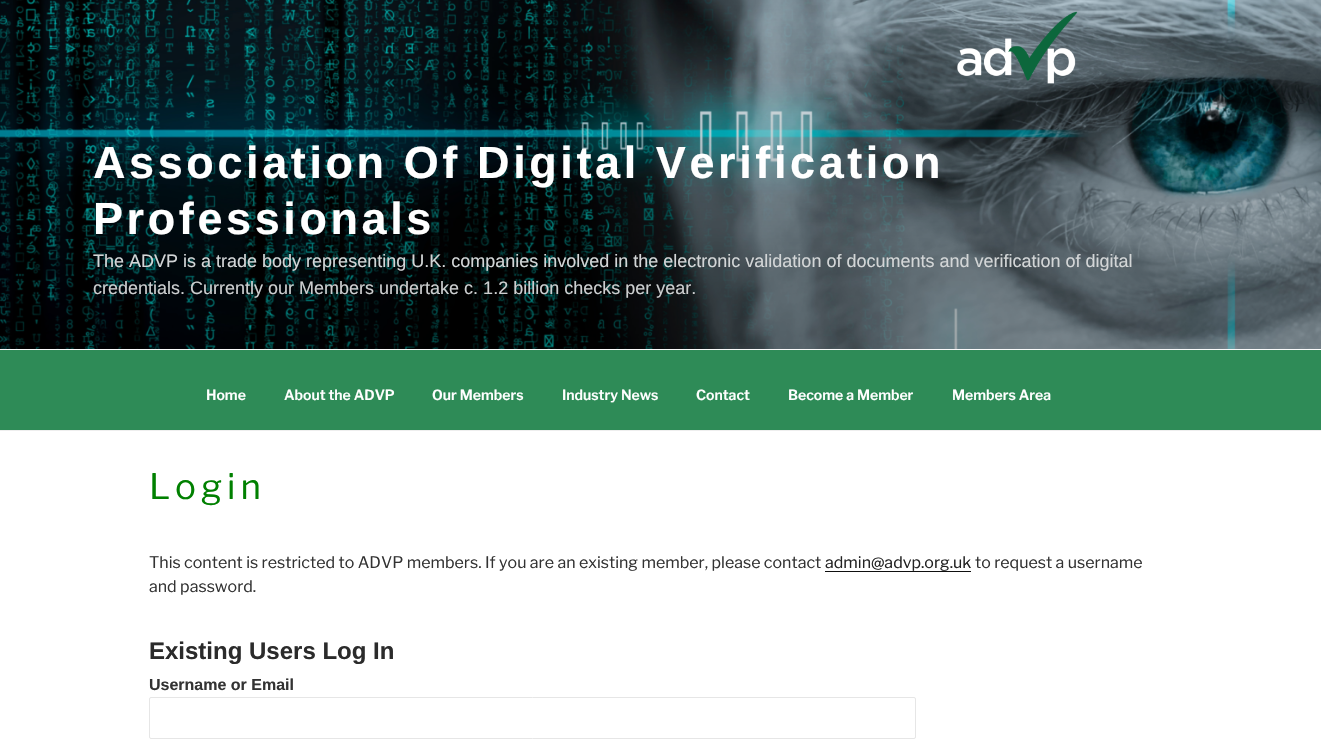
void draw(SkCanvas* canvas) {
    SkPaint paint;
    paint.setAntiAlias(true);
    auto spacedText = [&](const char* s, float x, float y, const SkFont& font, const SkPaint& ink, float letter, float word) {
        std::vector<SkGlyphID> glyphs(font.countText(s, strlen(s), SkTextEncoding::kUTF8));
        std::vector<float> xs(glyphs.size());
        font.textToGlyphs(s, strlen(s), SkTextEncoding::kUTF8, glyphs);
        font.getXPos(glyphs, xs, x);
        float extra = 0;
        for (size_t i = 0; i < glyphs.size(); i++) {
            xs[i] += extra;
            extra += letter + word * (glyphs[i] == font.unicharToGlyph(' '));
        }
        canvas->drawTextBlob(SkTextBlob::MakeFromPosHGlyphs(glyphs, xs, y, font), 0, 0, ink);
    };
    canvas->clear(0xFFFFFFFF);
    paint.setColor(0xFFFAFAFA);
    canvas->drawRect(SkRect::MakeXYWH(0, 349, 1321, 1), paint);
    canvas->drawImageRect(SkImages::DeferredFromEncodedData(SkData::MakeFromFileName("img1.png")), SkRect::MakeXYWH(0, 0, 1321, 349), SkSamplingOptions());
    canvas->drawImageRect(SkImages::DeferredFromEncodedData(SkData::MakeFromFileName("img2.png")), SkRect::MakeXYWH(957, 11, 121, 73), SkSamplingOptions());
    SkFont font1(fontMgr->matchFamilyStyle("Liberation Sans", SkFontStyle::Bold()), 45);
    font1.setSubpixel(true);
    paint.setColor(0xFFFFFFFF);
    spacedText("Association Of Digital Verification", 93, 178, font1, paint, 3.6f, 0);
    spacedText("Professionals", 93, 234, font1, paint, 3.6f, 0);
    SkFont font2(fontMgr->matchFamilyStyle("Liberation Sans", SkFontStyle::Normal()), 18);
    font2.setSubpixel(true);
    paint.setColor(0xFFD3D6D7);
    canvas->drawString("The ADVP is a trade body representing U.K. companies involved in the electronic validation of documents and verification of digital", 93, 267, font2, paint);
    paint.setColor(0xFFCCCECF);
    canvas->drawString("credentials.", 93, 294, font2, paint);
    canvas->drawString("Currently our Members undertake c. 1.2 billion checks per year.", 190, 294, font2, paint);
    paint.setColor(0xFF2E8B57);
    canvas->drawRect(SkRect::MakeXYWH(0, 350, 1321, 80), paint);
    paint.setColor(0xFFEEEEEE);
    canvas->drawRect(SkRect::MakeXYWH(0, 430, 1321, 1), paint);
    SkFont font3(fontMgr->matchFamilyStyle("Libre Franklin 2", SkFontStyle(100, SkFontStyle::kNormal_Width, SkFontStyle::kUpright_Slant)), 14);
    font3.setSubpixel(true);
    paint.setColor(0xFFFFFFFF);
    canvas->drawString("Home", 206, 400, font3, paint);
    canvas->drawString("About the ADVP", 284, 400, font3, paint);
    canvas->drawString("Our Members", 432, 400, font3, paint);
    canvas->drawString("Industry News", 562, 400, font3, paint);
    canvas->drawString("Contact", 696, 400, font3, paint);
    canvas->drawString("Become a Member", 788, 400, font3, paint);
    canvas->drawString("Members Area", 952, 400, font3, paint);
    SkFont font4(fontMgr->matchFamilyStyle("Libre Franklin", SkFontStyle(100, SkFontStyle::kNormal_Width, SkFontStyle::kUpright_Slant)), 35);
    font4.setSubpixel(true);
    paint.setColor(0xFF008000);
    spacedText("Login", 149, 499, font4, paint, 5, 0);
    SkFont font5(fontMgr->matchFamilyStyle("Libre Franklin", SkFontStyle(100, SkFontStyle::kNormal_Width, SkFontStyle::kUpright_Slant)), 16);
    font5.setSubpixel(true);
    paint.setColor(0xFF333333);
    canvas->drawString("This content is restricted to ADVP members. If you are an existing member, please contact", 149, 568, font5, paint);
    paint.setColor(0xFF222222);
    canvas->drawString("admin@advp.org.uk", 825, 568, font5, paint);
    paint.setColor(0xFF0F0F0F);
    canvas->drawRect(SkRect::MakeXYWH(825, 571, 146, 1), paint);
    paint.setColor(0xFF333333);
    canvas->drawString("to request a username", 975, 568, font5, paint);
    canvas->drawString("and password.", 149, 592, font5, paint);
    SkFont font6(fontMgr->matchFamilyStyle("Liberation Sans", SkFontStyle::Bold()), 24);
    font6.setSubpixel(true);
    paint.setColor(0xFF2B2B2B);
    canvas->drawString("Existing Users Log In", 149, 659, font6, paint);
    SkFont font7(fontMgr->matchFamilyStyle("Liberation Sans", SkFontStyle::Bold()), 16);
    font7.setSubpixel(true);
    paint.setColor(0xFF333333);
    canvas->drawString("Username or Email", 149, 690, font7, paint);
    paint.setStyle(SkPaint::kStroke_Style);
    paint.setStrokeWidth(1);
    paint.setColor(0xFFE6E6E6);
    canvas->drawRoundRect(SkRect::MakeXYWH(149.5f, 697.5f, 766, 41), 1.5f, 1.5f, paint);
}
